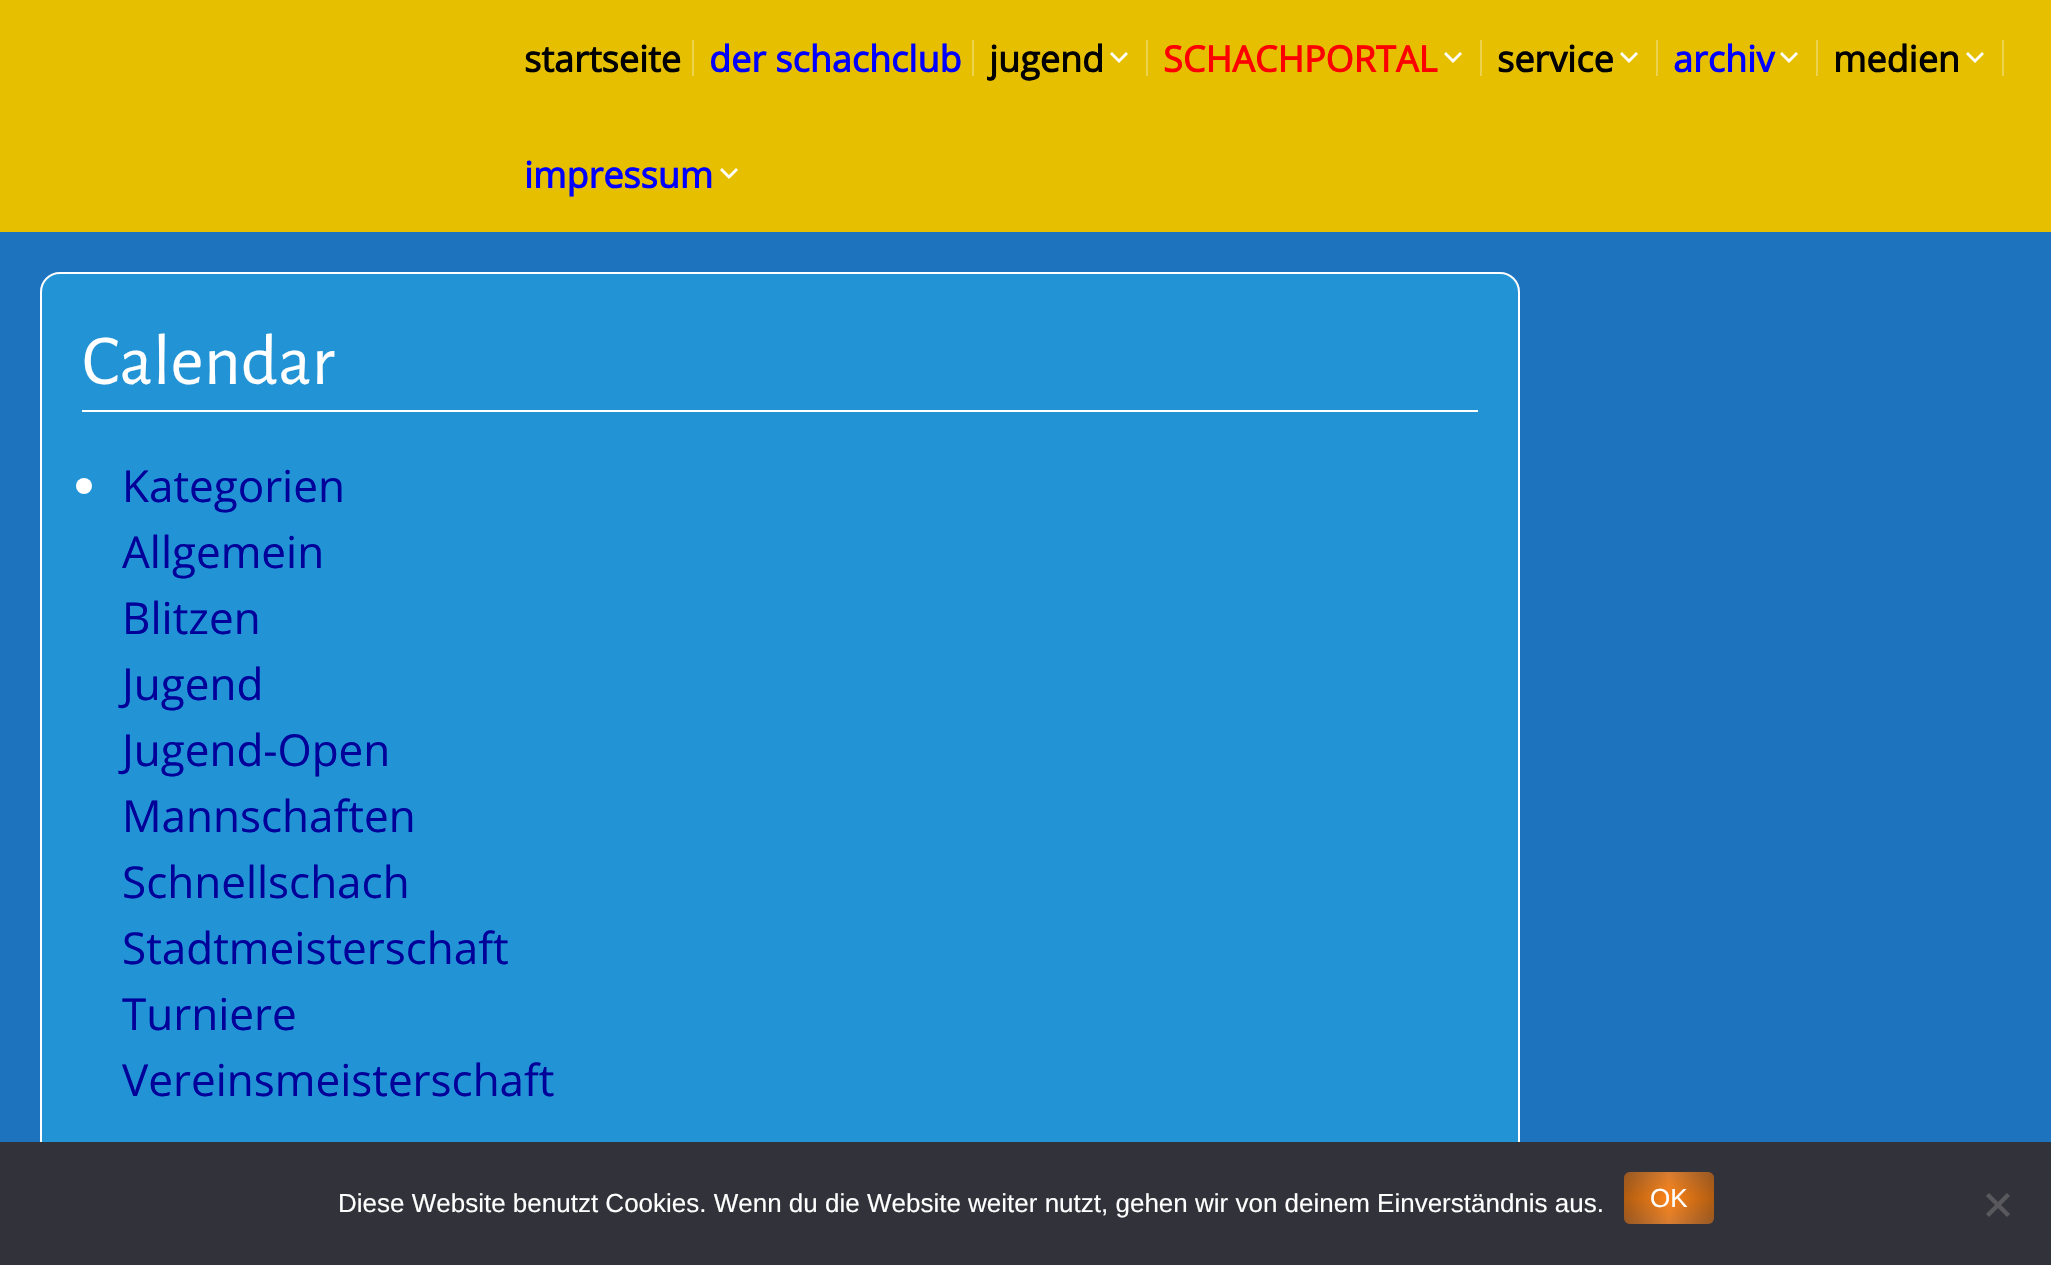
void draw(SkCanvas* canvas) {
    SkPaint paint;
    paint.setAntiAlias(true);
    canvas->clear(0xFF1E73BE);
    paint.setColor(0xFFE5BF00);
    canvas->drawRect(SkRect::MakeXYWH(0, 0, 2051, 232), paint);
    SkFont font1(fontMgr->matchFamilyStyle("Open Sans", SkFontStyle::Bold()), 36);
    font1.setSubpixel(true);
    paint.setColor(0xFF000000);
    canvas->drawString("startseite", 524, 72, font1, paint);
    paint.setColor(0xFFEDD24D);
    canvas->drawRect(SkRect::MakeXYWH(692, 40, 2, 36), paint);
    paint.setColor(0xFF0000FF);
    canvas->drawString("der schachclub", 709, 72, font1, paint);
    paint.setColor(0xFFEDD24D);
    canvas->drawRect(SkRect::MakeXYWH(972, 40, 2, 36), paint);
    paint.setColor(0xFF000000);
    canvas->drawString("jugend", 989, 72, font1, paint);
    paint.setColor(0xFFFFFFFF);
    canvas->drawPath(SkPathBuilder().moveTo(1126, 52).lineTo(1128, 54).lineTo(1119, 63).lineTo(1110, 54).lineTo(1112, 52).lineTo(1119, 59).close().detach(), paint);
    paint.setColor(0xFFEDD24D);
    canvas->drawRect(SkRect::MakeXYWH(1146, 40, 2, 36), paint);
    paint.setColor(0xFFFF0000);
    canvas->drawString("SCHACHPORTAL", 1163, 72, font1, paint);
    paint.setColor(0xFFFFFFFF);
    canvas->drawPath(SkPathBuilder().moveTo(1460, 52).lineTo(1462, 54).lineTo(1453, 63).lineTo(1444, 54).lineTo(1446, 52).lineTo(1453, 59).close().detach(), paint);
    paint.setColor(0xFFEDD24D);
    canvas->drawRect(SkRect::MakeXYWH(1480, 40, 2, 36), paint);
    paint.setColor(0xFF000000);
    canvas->drawString("service", 1497, 72, font1, paint);
    paint.setColor(0xFFFFFFFF);
    canvas->drawPath(SkPathBuilder().moveTo(1636, 52).lineTo(1638, 54).lineTo(1629, 63).lineTo(1620, 54).lineTo(1622, 52).lineTo(1629, 59).close().detach(), paint);
    paint.setColor(0xFFEDD24D);
    canvas->drawRect(SkRect::MakeXYWH(1656, 40, 2, 36), paint);
    paint.setColor(0xFF0000FF);
    canvas->drawString("archiv", 1673, 72, font1, paint);
    paint.setColor(0xFFFFFFFF);
    canvas->drawPath(SkPathBuilder().moveTo(1796, 52).lineTo(1798, 54).lineTo(1789, 63).lineTo(1780, 54).lineTo(1782, 52).lineTo(1789, 59).close().detach(), paint);
    paint.setColor(0xFFEDD24D);
    canvas->drawRect(SkRect::MakeXYWH(1816, 40, 2, 36), paint);
    paint.setColor(0xFF000000);
    canvas->drawString("medien", 1833, 72, font1, paint);
    paint.setColor(0xFFFFFFFF);
    canvas->drawPath(SkPathBuilder().moveTo(1982, 52).lineTo(1984, 54).lineTo(1975, 63).lineTo(1966, 54).lineTo(1968, 52).lineTo(1975, 59).close().detach(), paint);
    paint.setColor(0xFFEDD24D);
    canvas->drawRect(SkRect::MakeXYWH(2002, 40, 2, 36), paint);
    paint.setColor(0xFF0000FF);
    canvas->drawString("impressum", 524, 188, font1, paint);
    paint.setColor(0xFFFFFFFF);
    canvas->drawPath(SkPathBuilder().moveTo(736, 168).lineTo(738, 170).lineTo(729, 179).lineTo(720, 170).lineTo(722, 168).lineTo(729, 175).close().detach(), paint);
    paint.setColor(0xFF2294D6);
    canvas->drawRoundRect(SkRect::MakeXYWH(41, 273, 1478, 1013), 19, 19, paint);
    paint.setStyle(SkPaint::kStroke_Style);
    paint.setStrokeWidth(2);
    paint.setColor(0xFFFFFFFF);
    canvas->drawRoundRect(SkRect::MakeXYWH(41, 273, 1478, 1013), 19, 19, paint);
    paint.setStyle(SkPaint::kFill_Style);
    canvas->drawRect(SkRect::MakeXYWH(82, 410, 1396, 2), paint);
    SkFont font2(fontMgr->matchFamilyStyle("Alegreya Sans", SkFontStyle::Normal()), 72);
    font2.setSubpixel(true);
    canvas->drawString("Calendar", 82, 384, font2, paint);
    canvas->drawCircle(84, 486, 8, paint);
    SkFont font3(fontMgr->matchFamilyStyle("Open Sans", SkFontStyle::Normal()), 44);
    font3.setSubpixel(true);
    paint.setColor(0xFF01019A);
    canvas->drawString("Kategorien", 122, 502, font3, paint);
    canvas->drawString("Allgemein", 122, 568, font3, paint);
    canvas->drawString("Blitzen", 122, 634, font3, paint);
    canvas->drawString("Jugend", 122, 700, font3, paint);
    canvas->drawString("Jugend-Open", 122, 766, font3, paint);
    canvas->drawString("Mannschaften", 122, 832, font3, paint);
    canvas->drawString("Schnellschach", 122, 898, font3, paint);
    canvas->drawString("Stadtmeisterschaft", 122, 964, font3, paint);
    canvas->drawString("Turniere", 122, 1030, font3, paint);
    canvas->drawString("Vereinsmeisterschaft", 122, 1096, font3, paint);
    paint.setColor(0xFF32323A);
    canvas->drawRect(SkRect::MakeXYWH(0, 1142, 2051, 123), paint);
    SkFont font4(fontMgr->matchFamilyStyle("Liberation Sans", SkFontStyle::Normal()), 26);
    font4.setSubpixel(true);
    paint.setColor(0xFFFFFFFF);
    canvas->drawString("Diese Website benutzt Cookies. Wenn du die Website weiter nutzt, gehen wir von deinem Einverständnis aus.", 338, 1212, font4, paint);
    {
        const SkColor colors[] = {0xFFD77D31, 0xFFFE8417, 0xFFD77D31};
        const float stops[] = {0, 0.5f, 1};
        const SkPoint ends[] = {{1669, 1172}, {1669, 1224}};
        paint.setShader(SkGradientShader::MakeLinear(ends, colors, stops, 3, SkTileMode::kClamp));
        paint.setAlpha(255);
    }
    canvas->drawRoundRect(SkRect::MakeXYWH(1624, 1172, 90, 52), 6, 6, paint);
    {
        const SkColor colors[] = {0x4D000000, 0x00000000, 0x4D000000};
        const float stops[] = {0, 0.5f, 1};
        const SkPoint ends[] = {{1714, 1198}, {1624, 1198}};
        paint.setShader(SkGradientShader::MakeLinear(ends, colors, stops, 3, SkTileMode::kClamp));
        paint.setAlpha(255);
    }
    canvas->drawRoundRect(SkRect::MakeXYWH(1624, 1172, 90, 52), 6, 6, paint);
    paint.setShader(nullptr);
    paint.setColor(0xFFFFFFFF);
    canvas->drawString("OK", 1650, 1207, font4, paint);
    paint.setColor(0xFF59595D);
    canvas->drawPath(SkPathBuilder().moveTo(2007, 1193).lineTo(2010, 1196).lineTo(1989, 1217).lineTo(1986, 1214).close().detach(), paint);
    canvas->drawPath(SkPathBuilder().moveTo(1986, 1196).lineTo(1989, 1193).lineTo(2010, 1214).lineTo(2007, 1217).close().detach(), paint);
}
